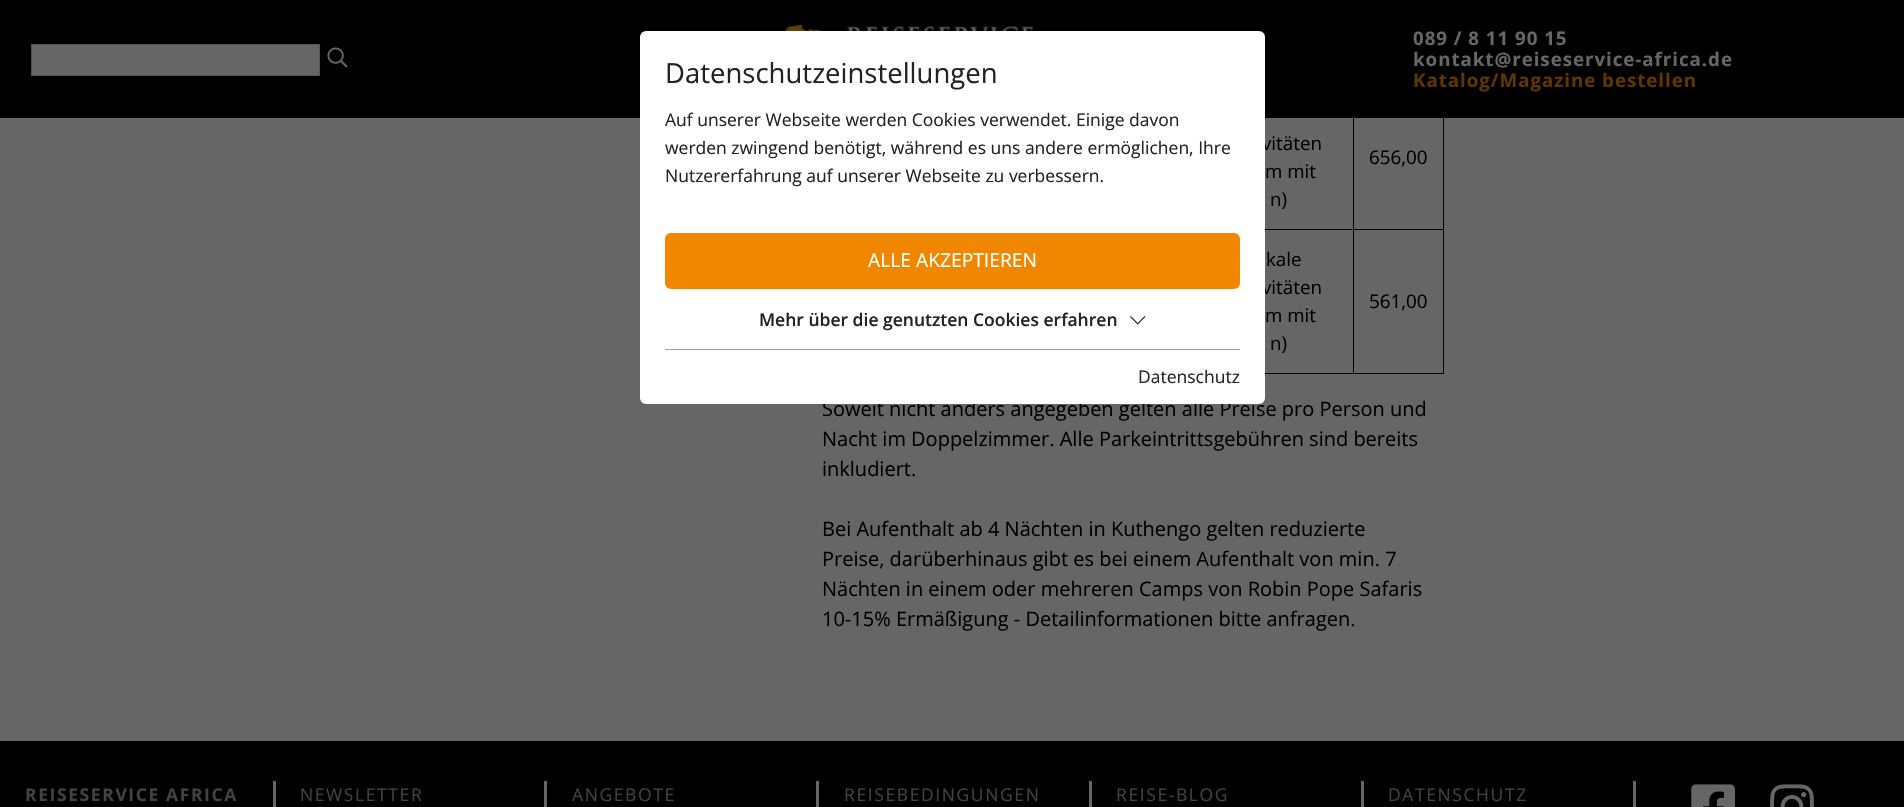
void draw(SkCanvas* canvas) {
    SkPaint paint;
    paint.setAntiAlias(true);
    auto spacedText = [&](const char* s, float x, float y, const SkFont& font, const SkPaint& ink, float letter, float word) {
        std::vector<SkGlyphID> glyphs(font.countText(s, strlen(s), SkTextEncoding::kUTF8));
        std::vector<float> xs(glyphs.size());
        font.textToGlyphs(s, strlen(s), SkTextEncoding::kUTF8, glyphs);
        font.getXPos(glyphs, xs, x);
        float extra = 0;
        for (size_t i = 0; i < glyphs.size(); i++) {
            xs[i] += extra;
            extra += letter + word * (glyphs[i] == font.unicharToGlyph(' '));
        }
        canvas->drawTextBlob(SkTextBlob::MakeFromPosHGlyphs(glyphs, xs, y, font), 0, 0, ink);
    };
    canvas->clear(0xFF666666);
    paint.setColor(0xFF000000);
    canvas->drawRect(SkRect::MakeXYWH(0, 0, 1904, 118), paint);
    canvas->drawImageRect(SkImages::DeferredFromEncodedData(SkData::MakeFromFileName("img1.png")), SkRect::MakeXYWH(784, 25, 249, 6), SkSamplingOptions());
    paint.setColor(0xFF666666);
    canvas->drawRect(SkRect::MakeXYWH(31.5f, 44.5f, 288, 31), paint);
    paint.setStyle(SkPaint::kStroke_Style);
    paint.setStrokeWidth(1);
    paint.setColor(0xFF525557);
    canvas->drawRect(SkRect::MakeXYWH(31.5f, 44.5f, 288, 31), paint);
    canvas->drawImageRect(SkImages::DeferredFromEncodedData(SkData::MakeFromFileName("img2.png")), SkRect::MakeXYWH(327, 47, 21, 21), SkSamplingOptions());
    SkFont font1(fontMgr->matchFamilyStyle("Open Sans", SkFontStyle::Bold()), 18.75f);
    font1.setSubpixel(true);
    paint.setStyle(SkPaint::kFill_Style);
    paint.setColor(0xFF666666);
    spacedText("089 / 8 11 90 15", 1413, 45, font1, paint, 0.95f, 0);
    spacedText("kontakt@reiseservice-africa.de", 1413, 66, font1, paint, 0.95f, 0);
    paint.setColor(0xFF603600);
    spacedText("Katalog/Magazine bestellen", 1413, 87, font1, paint, 0.95f, 0);
    paint.setColor(0xFF000000);
    canvas->drawRect(SkRect::MakeXYWH(1443, 118, 1, 256), paint);
    canvas->drawRect(SkRect::MakeXYWH(1265, 373, 179, 1), paint);
    SkFont font2(fontMgr->matchFamilyStyle("Open Sans", SkFontStyle::Normal()), 18.75f);
    font2.setSubpixel(true);
    canvas->drawString("vitäten", 1262, 150, font2, paint);
    canvas->drawString("m mit", 1265, 178, font2, paint);
    canvas->drawString("n)", 1270, 206, font2, paint);
    canvas->drawString("656,00", 1369, 164, font2, paint);
    canvas->drawRect(SkRect::MakeXYWH(1265, 229, 179, 1), paint);
    canvas->drawString("kale", 1266, 266, font2, paint);
    canvas->drawString("vitäten", 1262, 294, font2, paint);
    canvas->drawString("m mit", 1265, 322, font2, paint);
    canvas->drawString("n)", 1270, 350, font2, paint);
    canvas->drawRect(SkRect::MakeXYWH(1353, 118, 1, 256), paint);
    canvas->drawString("561,00", 1369, 308, font2, paint);
    SkFont font3(fontMgr->matchFamilyStyle("Open Sans", SkFontStyle::Normal()), 20);
    font3.setSubpixel(true);
    canvas->drawString("Soweit nicht anders angegeben gelten alle Preise pro Person und", 822, 416, font3, paint);
    canvas->drawString("Nacht im Doppelzimmer. Alle Parkeintrittsgebühren sind bereits", 822, 446, font3, paint);
    canvas->drawString("inkludiert.", 822, 476, font3, paint);
    canvas->drawString("Bei Aufenthalt ab 4 Nächten in Kuthengo gelten reduzierte", 822, 536, font3, paint);
    canvas->drawString("Preise, darüberhinaus gibt es bei einem Aufenthalt von min. 7", 822, 566, font3, paint);
    canvas->drawString("Nächten in einem oder mehreren Camps von Robin Pope Safaris", 822, 596, font3, paint);
    canvas->drawString("10-15% Ermäßigung - Detailinformationen bitte anfragen.", 822, 626, font3, paint);
    canvas->drawRect(SkRect::MakeXYWH(0, 741, 1904, 66), paint);
    SkFont font4(fontMgr->matchFamilyStyle("Open Sans", SkFontStyle::Bold()), 17.5f);
    font4.setSubpixel(true);
    paint.setColor(0xFF424242);
    spacedText("REISESERVICE AFRICA", 25, 801, font4, paint, 1.6f, 0);
    paint.setColor(0xFF666666);
    canvas->drawRect(SkRect::MakeXYWH(273, 781, 3, 26), paint);
    SkFont font5(fontMgr->matchFamilyStyle("Open Sans", SkFontStyle::Normal()), 17.5f);
    font5.setSubpixel(true);
    paint.setColor(0xFF424242);
    spacedText("NEWSLETTER", 300, 801, font5, paint, 1.6f, 0);
    paint.setColor(0xFF666666);
    canvas->drawRect(SkRect::MakeXYWH(544, 781, 3, 26), paint);
    paint.setColor(0xFF424242);
    spacedText("ANGEBOTE", 572, 801, font5, paint, 1.6f, 0);
    paint.setColor(0xFF666666);
    canvas->drawRect(SkRect::MakeXYWH(816, 781, 3, 26), paint);
    paint.setColor(0xFF424242);
    spacedText("REISEBEDINGUNGEN", 844, 801, font5, paint, 1.6f, 0);
    paint.setColor(0xFF666666);
    canvas->drawRect(SkRect::MakeXYWH(1089, 781, 3, 26), paint);
    paint.setColor(0xFF424242);
    spacedText("REISE-BLOG", 1116, 801, font5, paint, 1.6f, 0);
    paint.setColor(0xFF666666);
    canvas->drawRect(SkRect::MakeXYWH(1361, 781, 3, 26), paint);
    paint.setColor(0xFF424242);
    spacedText("DATENSCHUTZ", 1388, 801, font5, paint, 1.6f, 0);
    paint.setColor(0xFF666666);
    canvas->drawRect(SkRect::MakeXYWH(1633, 781, 3, 26), paint);
    canvas->drawImageRect(SkImages::DeferredFromEncodedData(SkData::MakeFromFileName("img3.png")), SkRect::MakeXYWH(1691, 784, 44, 23), SkSamplingOptions());
    canvas->drawImageRect(SkImages::DeferredFromEncodedData(SkData::MakeFromFileName("img4.png")), SkRect::MakeXYWH(1770, 784, 44, 23), SkSamplingOptions());
    paint.setColor(0xFFFFFFFF);
    canvas->drawRoundRect(SkRect::MakeXYWH(640, 31, 625, 373), 6, 6, paint);
    SkFont font6(fontMgr->matchFamilyStyle("Open Sans", SkFontStyle::Normal()), 27.5f);
    font6.setSubpixel(true);
    paint.setColor(0xFF222222);
    canvas->drawString("Datenschutzeinstellungen", 665, 83, font6, paint);
    canvas->drawString("Auf unserer Webseite werden Cookies verwendet. Einige davon", 665, 126, font5, paint);
    canvas->drawString("werden zwingend benötigt, während es uns andere ermöglichen, Ihre", 665, 154, font5, paint);
    canvas->drawString("Nutzererfahrung auf unserer Webseite zu verbessern.", 665, 182, font5, paint);
    paint.setColor(0xFFF18700);
    canvas->drawRoundRect(SkRect::MakeXYWH(665, 233, 575, 56), 6, 6, paint);
    SkFont font7(fontMgr->matchFamilyStyle("Open Sans", SkFontStyle::Normal()), 19.25f);
    font7.setSubpixel(true);
    paint.setColor(0xFFFFFFFF);
    canvas->drawString("ALLE AKZEPTIEREN", 868, 267, font7, paint);
    SkFont font8(fontMgr->matchFamilyStyle("Open Sans", SkFontStyle(600, SkFontStyle::kNormal_Width, SkFontStyle::kUpright_Slant)), 17.5f);
    font8.setSubpixel(true);
    paint.setColor(0xFF222222);
    canvas->drawString("Mehr über die genutzten Cookies erfahren", 759, 326, font8, paint);
    canvas->drawImageRect(SkImages::DeferredFromEncodedData(SkData::MakeFromFileName("img5.png")), SkRect::MakeXYWH(1130, 316, 16, 9), SkSamplingOptions());
    paint.setColor(0xFFA5A5A5);
    canvas->drawRect(SkRect::MakeXYWH(665, 349, 575, 1), paint);
    paint.setColor(0xFF222222);
    canvas->drawString("Datenschutz", 1138, 383, font5, paint);
}
